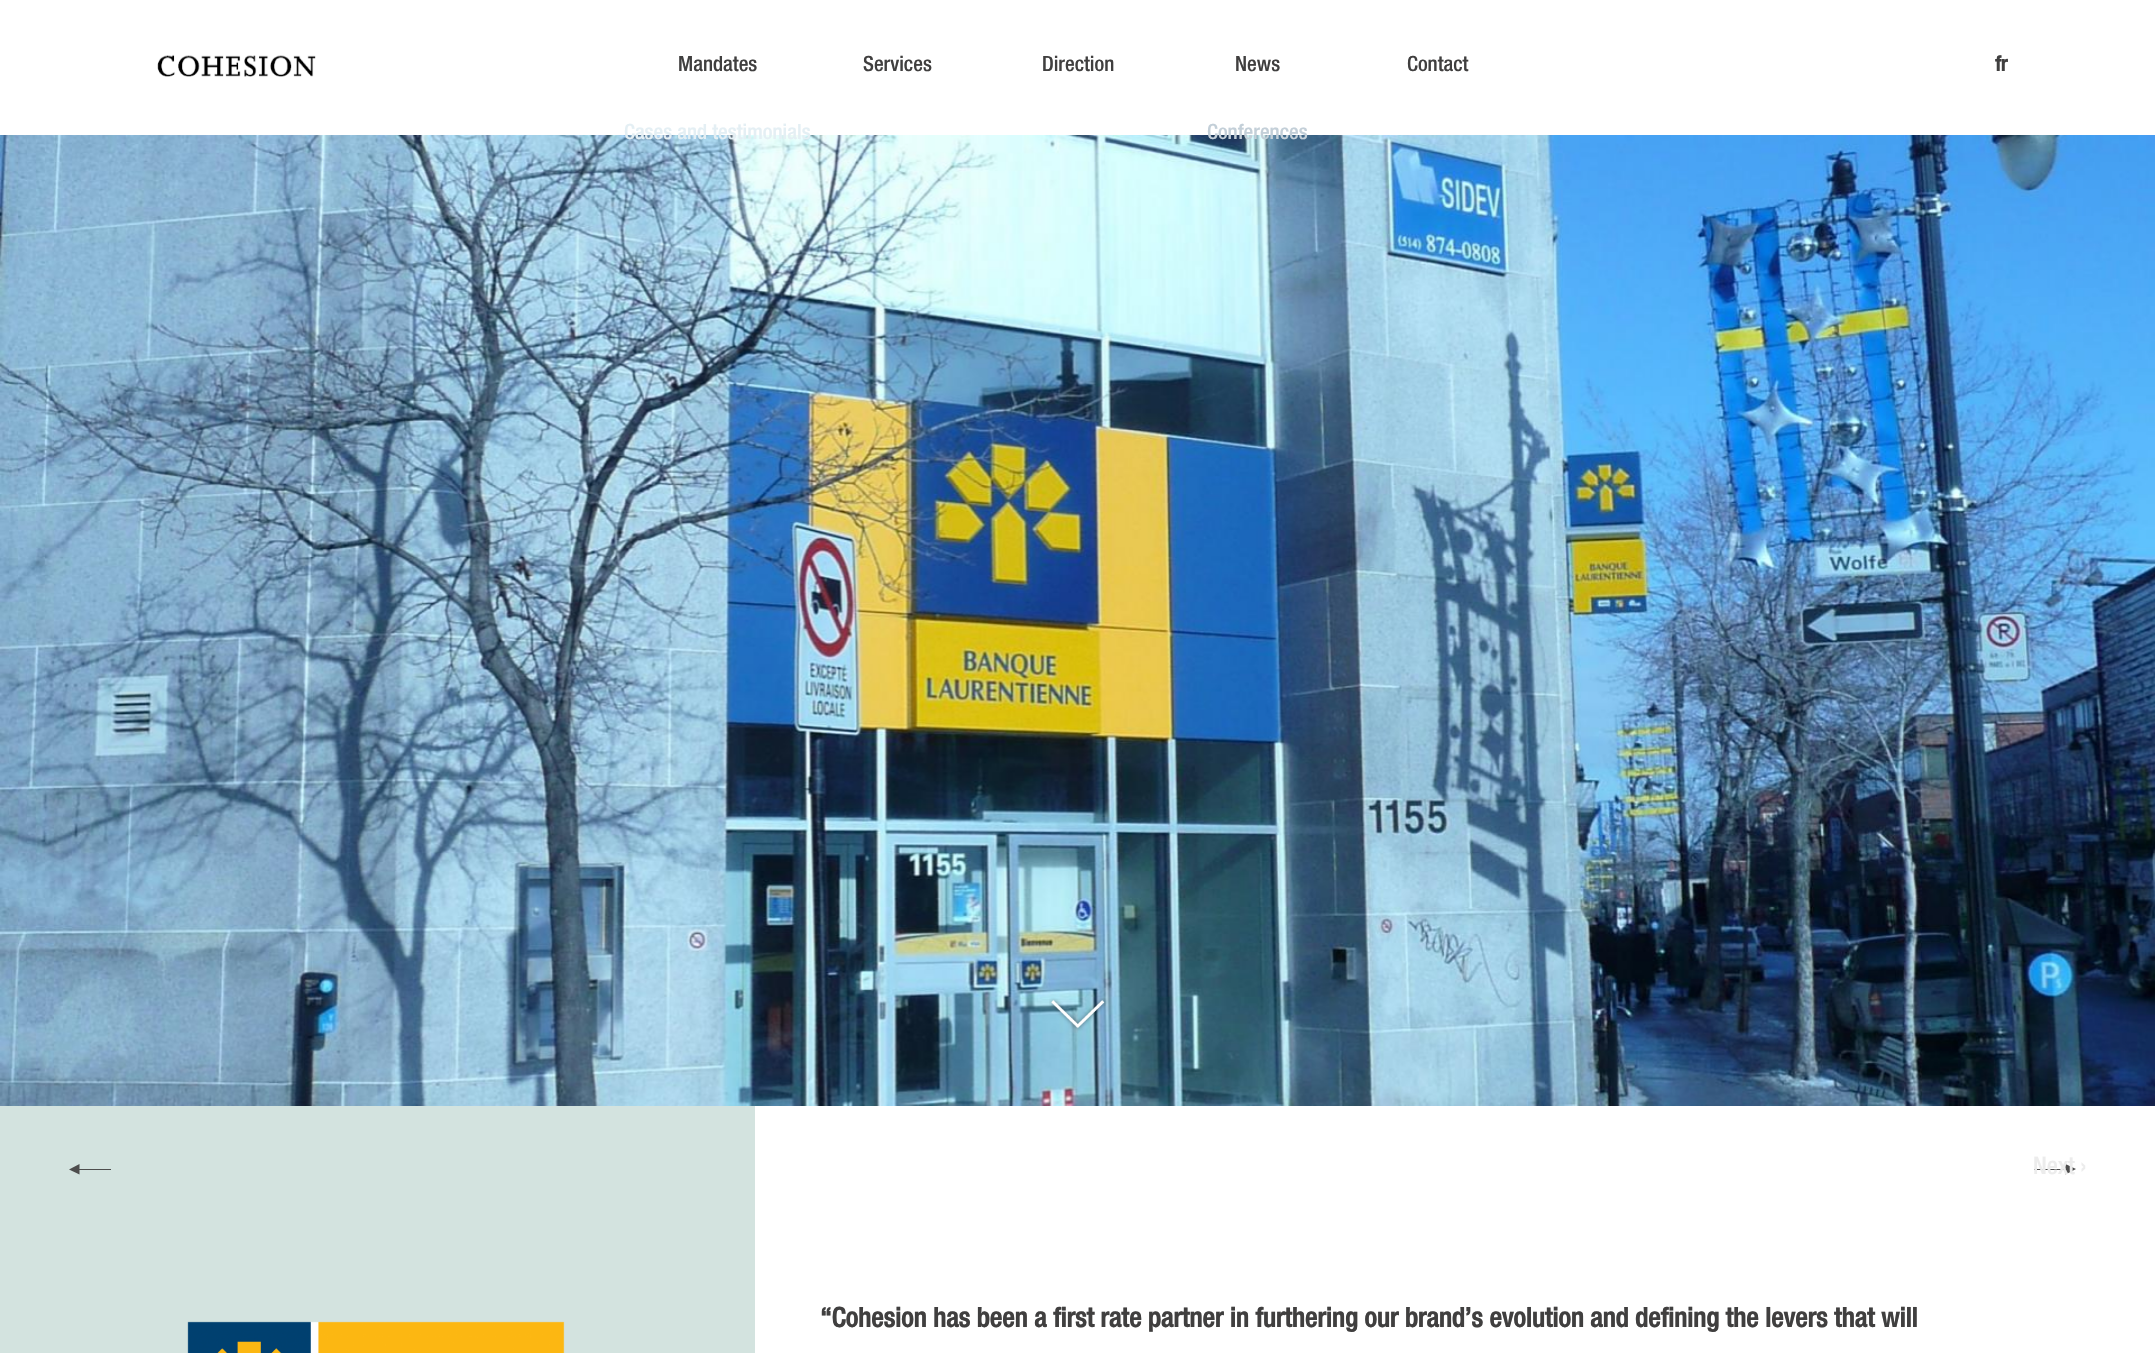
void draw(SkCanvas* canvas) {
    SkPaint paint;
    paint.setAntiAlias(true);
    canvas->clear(0xFFFFFFFF);
    canvas->drawImageRect(SkImages::DeferredFromEncodedData(SkData::MakeFromFileName("img1.png")), SkRect::MakeXYWH(157, 54, 159, 23), SkSamplingOptions());
    SkFont font1(fontMgr->matchFamilyStyle("Helvetica Neue", SkFontStyle(500, SkFontStyle::kNormal_Width, SkFontStyle::kUpright_Slant)), 21);
    font1.setSubpixel(true);
    paint.setColor(0xFF403F3F);
    canvas->drawString("Mandates", 678, 71, font1, paint);
    canvas->drawImageRect(SkImages::DeferredFromEncodedData(SkData::MakeFromFileName("img3.png")), SkRect::MakeXYWH(0, 135, 2155, 971), SkSamplingOptions());
    paint.setColor(0xFFE4EFF4);
    canvas->drawString("Cases and testimonials", 624, 139, font1, paint);
    paint.setColor(0xFF403F3F);
    canvas->drawString("Services", 863, 71, font1, paint);
    canvas->drawString("Direction", 1042, 71, font1, paint);
    canvas->drawString("News", 1235, 71, font1, paint);
    paint.setColor(0xFFC3CFD8);
    canvas->drawString("Conferences", 1207, 139, font1, paint);
    paint.setColor(0xFF403F3F);
    canvas->drawString("Contact", 1407, 71, font1, paint);
    SkFont font2(fontMgr->matchFamilyStyle("Helvetica Neue", SkFontStyle::Bold()), 21);
    font2.setSubpixel(true);
    canvas->drawString("fr", 1995, 71, font2, paint);
    paint.setColor(0xFFD3E3DF);
    canvas->drawRect(SkRect::MakeXYWH(0, 1106, 755, 247), paint);
    canvas->drawImageRect(SkImages::DeferredFromEncodedData(SkData::MakeFromFileName("img2.png")), SkRect::MakeXYWH(187, 1321, 378, 32), SkSamplingOptions());
    canvas->drawImageRect(SkImages::DeferredFromEncodedData(SkData::MakeFromFileName("img4.png")), SkRect::MakeXYWH(1049, 998, 58, 33), SkSamplingOptions());
    paint.setColor(0xFF4D4D4D);
    canvas->drawRect(SkRect::MakeXYWH(77, 1169, 34, 1), paint);
    canvas->drawPath(SkPathBuilder(SkPathFillType::kEvenOdd).moveTo(79.5f, 1164).lineTo(69, 1169.5f).lineTo(79.5f, 1174.5f).close().detach(), paint);
    canvas->drawRect(SkRect::MakeXYWH(2034, 1169, 35, 1), paint);
    canvas->drawPath(SkPathBuilder(SkPathFillType::kEvenOdd).moveTo(2065.5f, 1174.5f).lineTo(2076, 1169).lineTo(2065.5f, 1164).close().detach(), paint);
    SkFont font3(fontMgr->matchFamilyStyle("Helvetica Neue", SkFontStyle(500, SkFontStyle::kNormal_Width, SkFontStyle::kUpright_Slant)), 24);
    font3.setSubpixel(true);
    paint.setColor(0xFFECECEC);
    canvas->drawString("Next ›", 2033, 1174, font3, paint);
    SkFont font4(fontMgr->matchFamilyStyle("Helvetica Neue", SkFontStyle::Bold()), 27);
    font4.setSubpixel(true);
    paint.setColor(0xFF403F3F);
    canvas->drawString("“Cohesion has been a first rate partner in furthering our brand’s evolution and defining the levers that will", 820, 1327, font4, paint);
}
